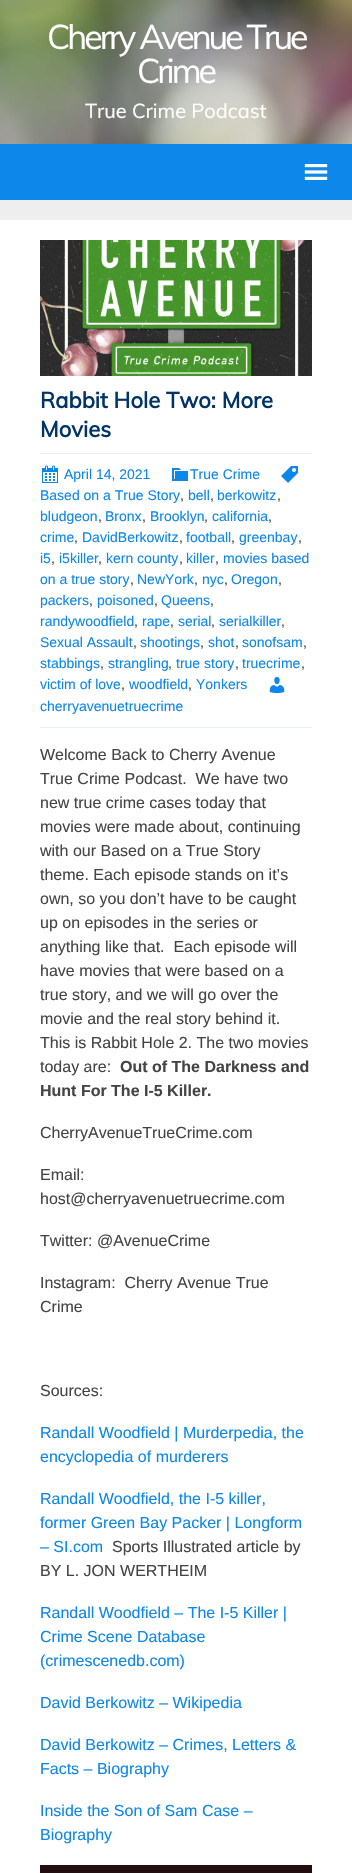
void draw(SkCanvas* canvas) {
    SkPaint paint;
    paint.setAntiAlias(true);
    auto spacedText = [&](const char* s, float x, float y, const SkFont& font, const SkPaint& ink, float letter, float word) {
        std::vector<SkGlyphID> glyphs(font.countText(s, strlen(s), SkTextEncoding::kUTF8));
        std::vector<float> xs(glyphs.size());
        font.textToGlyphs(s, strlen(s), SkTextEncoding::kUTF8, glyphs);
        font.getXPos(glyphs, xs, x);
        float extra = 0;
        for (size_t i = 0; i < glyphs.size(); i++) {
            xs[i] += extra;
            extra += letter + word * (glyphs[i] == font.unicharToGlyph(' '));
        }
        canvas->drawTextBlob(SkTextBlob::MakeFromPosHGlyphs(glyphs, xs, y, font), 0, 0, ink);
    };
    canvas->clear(0xFFEEEEEE);
    canvas->drawImageRect(SkImages::DeferredFromEncodedData(SkData::MakeFromFileName("img1.png")), SkRect::MakeXYWH(0, 0, 352, 144), SkSamplingOptions());
    SkFont font1(fontMgr->matchFamilyStyle("Muli", SkFontStyle::Normal()), 34);
    font1.setSubpixel(true);
    paint.setColor(0xFFFFFFFF);
    spacedText("Cherry Avenue True", 47, 49, font1, paint, -3, 0);
    spacedText("Crime", 137, 83, font1, paint, -3, 0);
    SkFont font2(fontMgr->matchFamilyStyle("Muli", SkFontStyle::Normal()), 20);
    font2.setSubpixel(true);
    canvas->drawString("True Crime Podcast", 85, 118, font2, paint);
    paint.setColor(0xFF0D87E9);
    canvas->drawRect(SkRect::MakeXYWH(0, 144, 352, 56), paint);
    canvas->drawImageRect(SkImages::DeferredFromEncodedData(SkData::MakeFromFileName("img2.png")), SkRect::MakeXYWH(304, 164, 24, 16), SkSamplingOptions());
    paint.setColor(0xFFFFFFFF);
    canvas->drawRect(SkRect::MakeXYWH(0, 220, 352, 1653), paint);
    canvas->drawImageRect(SkImages::DeferredFromEncodedData(SkData::MakeFromFileName("img3.png")), SkRect::MakeXYWH(40, 240, 272, 136), SkSamplingOptions());
    SkFont font3(fontMgr->matchFamilyStyle("Muli", SkFontStyle::Bold()), 22);
    font3.setSubpixel(true);
    paint.setColor(0xFF003366);
    canvas->drawString("Rabbit Hole Two: More", 40, 408, font3, paint);
    canvas->drawString("Movies", 40, 437, font3, paint);
    paint.setColor(0xFFECF0F1);
    canvas->drawRect(SkRect::MakeXYWH(40, 453, 272, 1), paint);
    canvas->drawImageRect(SkImages::DeferredFromEncodedData(SkData::MakeFromFileName("img4.png")), SkRect::MakeXYWH(42, 465, 16, 18), SkSamplingOptions());
    SkFont font4(fontMgr->matchFamilyStyle("Liberation Sans", SkFontStyle::Normal()), 14);
    font4.setSubpixel(true);
    paint.setColor(0xFF0D87E9);
    canvas->drawString("April 14, 2021", 64, 479, font4, paint);
    canvas->drawImageRect(SkImages::DeferredFromEncodedData(SkData::MakeFromFileName("img5.png")), SkRect::MakeXYWH(172, 468, 16, 13), SkSamplingOptions());
    canvas->drawString("True Crime", 190, 479, font4, paint);
    canvas->drawImageRect(SkImages::DeferredFromEncodedData(SkData::MakeFromFileName("img6.png")), SkRect::MakeXYWH(281, 466, 17, 17), SkSamplingOptions());
    canvas->drawString("Based on a True Story", 40, 500, font4, paint);
    paint.setColor(0xFF444444);
    canvas->drawString(",", 180, 500, font4, paint);
    paint.setColor(0xFF0D87E9);
    canvas->drawString("bell", 188, 500, font4, paint);
    paint.setColor(0xFF444444);
    canvas->drawString(",", 210, 500, font4, paint);
    paint.setColor(0xFF0D87E9);
    canvas->drawString("berkowitz", 217, 500, font4, paint);
    paint.setColor(0xFF444444);
    canvas->drawString(",", 277, 500, font4, paint);
    paint.setColor(0xFF0D87E9);
    canvas->drawString("bludgeon", 40, 521, font4, paint);
    paint.setColor(0xFF444444);
    canvas->drawString(",", 98, 521, font4, paint);
    paint.setColor(0xFF0D87E9);
    canvas->drawString("Bronx", 105, 521, font4, paint);
    paint.setColor(0xFF444444);
    canvas->drawString(",", 142, 521, font4, paint);
    paint.setColor(0xFF0D87E9);
    canvas->drawString("Brooklyn", 150, 521, font4, paint);
    paint.setColor(0xFF444444);
    canvas->drawString(",", 204, 521, font4, paint);
    paint.setColor(0xFF0D87E9);
    canvas->drawString("california", 212, 521, font4, paint);
    paint.setColor(0xFF444444);
    canvas->drawString(",", 268, 521, font4, paint);
    paint.setColor(0xFF0D87E9);
    canvas->drawString("crime", 40, 542, font4, paint);
    paint.setColor(0xFF444444);
    canvas->drawString(",", 74, 542, font4, paint);
    paint.setColor(0xFF0D87E9);
    canvas->drawString("DavidBerkowitz", 82, 542, font4, paint);
    paint.setColor(0xFF444444);
    canvas->drawString(",", 179, 542, font4, paint);
    paint.setColor(0xFF0D87E9);
    canvas->drawString("football", 186, 542, font4, paint);
    paint.setColor(0xFF444444);
    canvas->drawString(",", 231, 542, font4, paint);
    paint.setColor(0xFF0D87E9);
    canvas->drawString("greenbay", 239, 542, font4, paint);
    paint.setColor(0xFF444444);
    canvas->drawString(",", 298, 542, font4, paint);
    paint.setColor(0xFF0D87E9);
    canvas->drawString("i5", 40, 563, font4, paint);
    paint.setColor(0xFF444444);
    canvas->drawString(",", 51, 563, font4, paint);
    paint.setColor(0xFF0D87E9);
    canvas->drawString("i5killer", 59, 563, font4, paint);
    paint.setColor(0xFF444444);
    canvas->drawString(",", 98, 563, font4, paint);
    paint.setColor(0xFF0D87E9);
    canvas->drawString("kern county", 106, 563, font4, paint);
    paint.setColor(0xFF444444);
    canvas->drawString(",", 179, 563, font4, paint);
    paint.setColor(0xFF0D87E9);
    canvas->drawString("killer", 186, 563, font4, paint);
    paint.setColor(0xFF444444);
    canvas->drawString(",", 215, 563, font4, paint);
    paint.setColor(0xFF0D87E9);
    canvas->drawString("movies based", 223, 563, font4, paint);
    canvas->drawString("on a true story", 40, 584, font4, paint);
    paint.setColor(0xFF444444);
    canvas->drawString(",", 130, 584, font4, paint);
    paint.setColor(0xFF0D87E9);
    canvas->drawString("NewYork", 137, 584, font4, paint);
    paint.setColor(0xFF444444);
    canvas->drawString(",", 194, 584, font4, paint);
    paint.setColor(0xFF0D87E9);
    canvas->drawString("nyc", 202, 584, font4, paint);
    paint.setColor(0xFF444444);
    canvas->drawString(",", 224, 584, font4, paint);
    paint.setColor(0xFF0D87E9);
    canvas->drawString("Oregon", 231, 584, font4, paint);
    paint.setColor(0xFF444444);
    canvas->drawString(",", 278, 584, font4, paint);
    paint.setColor(0xFF0D87E9);
    canvas->drawString("packers", 40, 605, font4, paint);
    paint.setColor(0xFF444444);
    canvas->drawString(",", 89, 605, font4, paint);
    paint.setColor(0xFF0D87E9);
    canvas->drawString("poisoned", 97, 605, font4, paint);
    paint.setColor(0xFF444444);
    canvas->drawString(",", 154, 605, font4, paint);
    paint.setColor(0xFF0D87E9);
    canvas->drawString("Queens", 161, 605, font4, paint);
    paint.setColor(0xFF444444);
    canvas->drawString(",", 210, 605, font4, paint);
    paint.setColor(0xFF0D87E9);
    canvas->drawString("randywoodfield", 40, 626, font4, paint);
    paint.setColor(0xFF444444);
    canvas->drawString(",", 134, 626, font4, paint);
    paint.setColor(0xFF0D87E9);
    canvas->drawString("rape", 142, 626, font4, paint);
    paint.setColor(0xFF444444);
    canvas->drawString(",", 170, 626, font4, paint);
    paint.setColor(0xFF0D87E9);
    canvas->drawString("serial", 178, 626, font4, paint);
    paint.setColor(0xFF444444);
    canvas->drawString(",", 211, 626, font4, paint);
    paint.setColor(0xFF0D87E9);
    canvas->drawString("serialkiller", 219, 626, font4, paint);
    paint.setColor(0xFF444444);
    canvas->drawString(",", 281, 626, font4, paint);
    paint.setColor(0xFF0D87E9);
    canvas->drawString("Sexual Assault", 40, 647, font4, paint);
    paint.setColor(0xFF444444);
    canvas->drawString(",", 133, 647, font4, paint);
    paint.setColor(0xFF0D87E9);
    canvas->drawString("shootings", 140, 647, font4, paint);
    paint.setColor(0xFF444444);
    canvas->drawString(",", 200, 647, font4, paint);
    paint.setColor(0xFF0D87E9);
    canvas->drawString("shot", 208, 647, font4, paint);
    paint.setColor(0xFF444444);
    canvas->drawString(",", 235, 647, font4, paint);
    paint.setColor(0xFF0D87E9);
    canvas->drawString("sonofsam", 242, 647, font4, paint);
    paint.setColor(0xFF444444);
    canvas->drawString(",", 303, 647, font4, paint);
    paint.setColor(0xFF0D87E9);
    canvas->drawString("stabbings", 40, 668, font4, paint);
    paint.setColor(0xFF444444);
    canvas->drawString(",", 100, 668, font4, paint);
    paint.setColor(0xFF0D87E9);
    canvas->drawString("strangling", 108, 668, font4, paint);
    paint.setColor(0xFF444444);
    canvas->drawString(",", 168, 668, font4, paint);
    paint.setColor(0xFF0D87E9);
    canvas->drawString("true story", 176, 668, font4, paint);
    paint.setColor(0xFF444444);
    canvas->drawString(",", 235, 668, font4, paint);
    paint.setColor(0xFF0D87E9);
    canvas->drawString("truecrime", 242, 668, font4, paint);
    paint.setColor(0xFF444444);
    canvas->drawString(",", 301, 668, font4, paint);
    paint.setColor(0xFF0D87E9);
    canvas->drawString("victim of love", 40, 689, font4, paint);
    paint.setColor(0xFF444444);
    canvas->drawString(",", 121, 689, font4, paint);
    paint.setColor(0xFF0D87E9);
    canvas->drawString("woodfield", 129, 689, font4, paint);
    paint.setColor(0xFF444444);
    canvas->drawString(",", 188, 689, font4, paint);
    paint.setColor(0xFF0D87E9);
    canvas->drawString("Yonkers", 196, 689, font4, paint);
    canvas->drawImageRect(SkImages::DeferredFromEncodedData(SkData::MakeFromFileName("img7.png")), SkRect::MakeXYWH(269, 677, 16, 17), SkSamplingOptions());
    canvas->drawString("cherryavenuetruecrime", 40, 711, font4, paint);
    paint.setColor(0xFFECF0F1);
    canvas->drawRect(SkRect::MakeXYWH(40, 727, 272, 1), paint);
    SkFont font5(fontMgr->matchFamilyStyle("Liberation Sans", SkFontStyle::Normal()), 16);
    font5.setSubpixel(true);
    paint.setColor(0xFF444444);
    canvas->drawString("Welcome Back to Cherry Avenue", 40, 760, font5, paint);
    canvas->drawString("True Crime Podcast.  We have two", 40, 784, font5, paint);
    canvas->drawString("new true crime cases today that", 40, 808, font5, paint);
    canvas->drawString("movies were made about, continuing", 40, 832, font5, paint);
    canvas->drawString("with our Based on a True Story", 40, 856, font5, paint);
    canvas->drawString("theme. Each episode stands on it’s", 40, 880, font5, paint);
    canvas->drawString("own, so you don’t have to be caught", 40, 904, font5, paint);
    canvas->drawString("up on episodes in the series or", 40, 928, font5, paint);
    canvas->drawString("anything like that.  Each episode will", 40, 952, font5, paint);
    canvas->drawString("have movies that were based on a", 40, 976, font5, paint);
    canvas->drawString("true story, and we will go over the", 40, 1000, font5, paint);
    canvas->drawString("movie and the real story behind it.", 40, 1024, font5, paint);
    canvas->drawString("This is Rabbit Hole 2. The two movies", 40, 1048, font5, paint);
    canvas->drawString("today are:", 40, 1072, font5, paint);
    SkFont font6(fontMgr->matchFamilyStyle("Liberation Sans", SkFontStyle::Bold()), 16);
    font6.setSubpixel(true);
    canvas->drawString("Out of The Darkness and", 120, 1072, font6, paint);
    canvas->drawString("Hunt For The I-5 Killer.", 40, 1096, font6, paint);
    canvas->drawString("CherryAvenueTrueCrime.com", 40, 1138, font5, paint);
    canvas->drawString("Email:", 40, 1180, font5, paint);
    canvas->drawString("host@cherryavenuetruecrime.com", 40, 1204, font5, paint);
    canvas->drawString("Twitter: @AvenueCrime", 40, 1246, font5, paint);
    canvas->drawString("Instagram:  Cherry Avenue True", 40, 1288, font5, paint);
    canvas->drawString("Crime", 40, 1312, font5, paint);
    canvas->drawString("Sources:", 40, 1396, font5, paint);
    paint.setColor(0xFF0D87E9);
    canvas->drawString("Randall Woodfield | Murderpedia, the", 40, 1438, font5, paint);
    canvas->drawString("encyclopedia of murderers", 40, 1462, font5, paint);
    canvas->drawString("Randall Woodfield, the I-5 killer,", 40, 1504, font5, paint);
    canvas->drawString("former Green Bay Packer | Longform", 40, 1528, font5, paint);
    canvas->drawString("– SI.com", 40, 1552, font5, paint);
    paint.setColor(0xFF444444);
    canvas->drawString("Sports Illustrated article by", 112, 1552, font5, paint);
    canvas->drawString("BY L. JON WERTHEIM", 40, 1576, font5, paint);
    paint.setColor(0xFF0D87E9);
    canvas->drawString("Randall Woodfield – The I-5 Killer |", 40, 1618, font5, paint);
    canvas->drawString("Crime Scene Database", 40, 1642, font5, paint);
    canvas->drawString("(crimescenedb.com)", 40, 1666, font5, paint);
    canvas->drawString("David Berkowitz – Wikipedia", 40, 1708, font5, paint);
    canvas->drawString("David Berkowitz – Crimes, Letters &", 40, 1750, font5, paint);
    canvas->drawString("Facts – Biography", 40, 1774, font5, paint);
    canvas->drawString("Inside the Son of Sam Case –", 40, 1816, font5, paint);
    canvas->drawString("Biography", 40, 1840, font5, paint);
    paint.setColor(0xFF220E10);
    canvas->drawRect(SkRect::MakeXYWH(40, 1865, 272, 8), paint);
}
